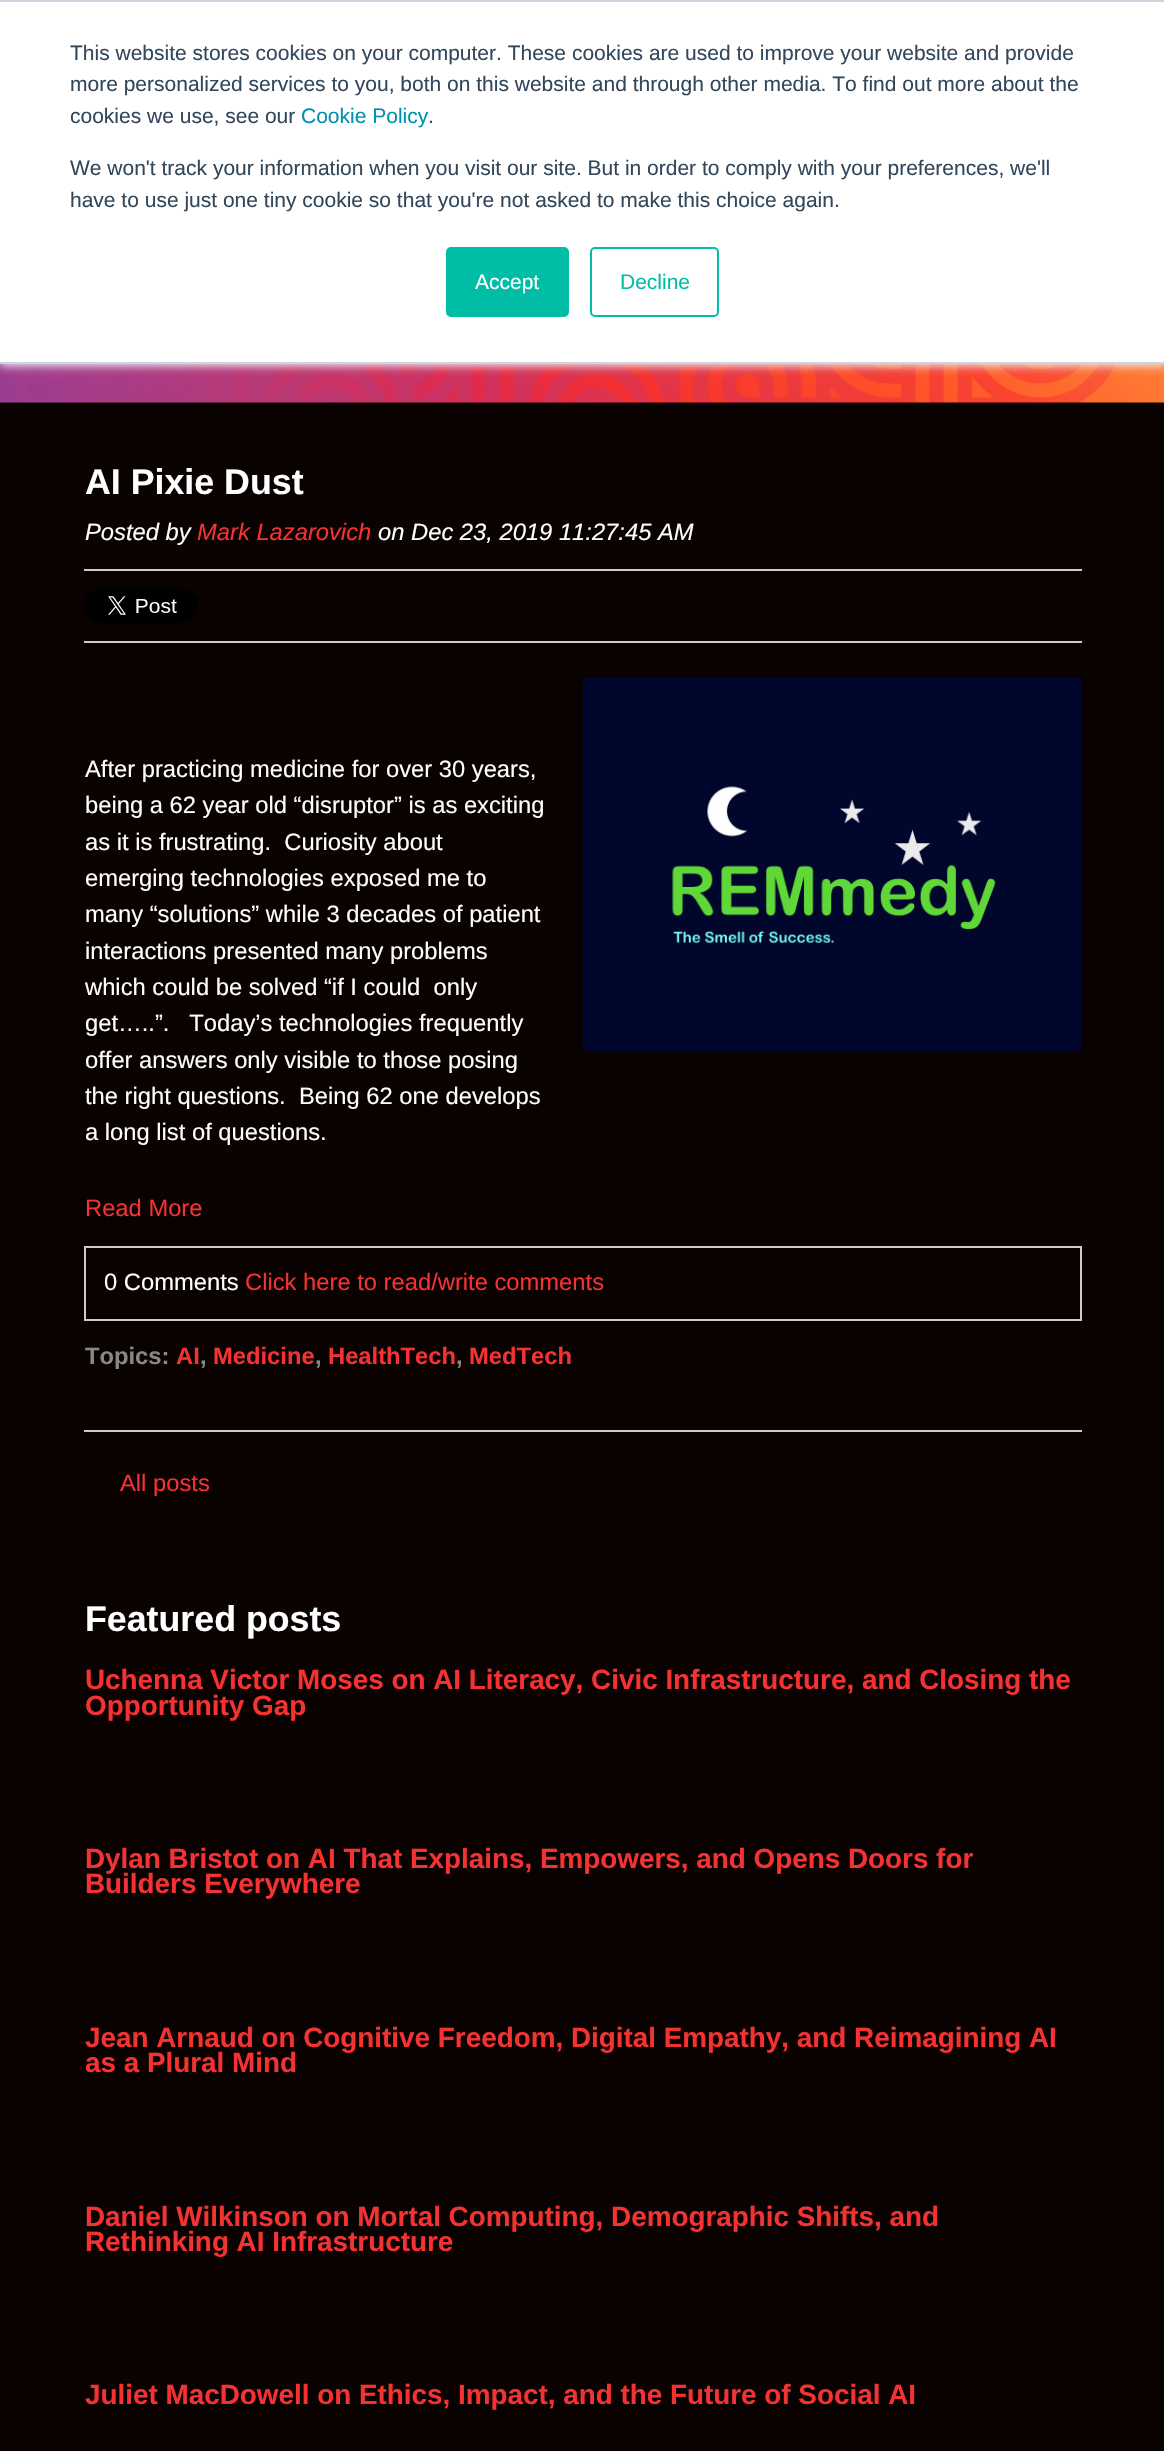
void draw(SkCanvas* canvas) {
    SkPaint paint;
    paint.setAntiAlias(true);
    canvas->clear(0xFF090200);
    canvas->drawImageRect(SkImages::DeferredFromEncodedData(SkData::MakeFromFileName("img1.png")), SkRect::MakeXYWH(0, 364, 1164, 39), SkSamplingOptions());
    paint.setColor(0xFFEAF0F6);
    paint.setMaskFilter(SkMaskFilter::MakeBlur(kNormal_SkBlurStyle, 4.5f));
    canvas->drawRect(SkRect::MakeXYWH(0, 2, 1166, 364), paint);
    paint.setMaskFilter(nullptr);
    paint.setColor(0xFFFFFFFF);
    canvas->drawRect(SkRect::MakeXYWH(0, 2, 1164, 360), paint);
    paint.setColor(0xFFCBD6E2);
    canvas->drawRect(SkRect::MakeXYWH(0, 0, 1164, 2), paint);
    canvas->drawRect(SkRect::MakeXYWH(0, 362, 1164, 2), paint);
    SkFont font1(fontMgr->matchFamilyStyle("Liberation Sans", SkFontStyle::Normal()), 21);
    font1.setSubpixel(true);
    paint.setColor(0xFF33475B);
    canvas->drawString("This website stores cookies on your computer. These cookies are used to improve your website and provide", 70, 60, font1, paint);
    canvas->drawString("more personalized services to you, both on this website and through other media. To find out more about the", 70, 91, font1, paint);
    canvas->drawString("cookies we use, see our", 70, 123, font1, paint);
    paint.setColor(0xFF0091AE);
    canvas->drawString("Cookie Policy", 301, 123, font1, paint);
    paint.setColor(0xFF33475B);
    canvas->drawString(".", 428, 123, font1, paint);
    canvas->drawString("We won't track your information when you visit our site. But in order to comply with your preferences, we'll", 70, 175, font1, paint);
    canvas->drawString("have to use just one tiny cookie so that you're not asked to make this choice again.", 70, 207, font1, paint);
    paint.setColor(0xFF00BDA5);
    canvas->drawRoundRect(SkRect::MakeXYWH(447, 248, 121, 68), 4, 4, paint);
    paint.setStyle(SkPaint::kStroke_Style);
    paint.setStrokeWidth(2);
    canvas->drawRoundRect(SkRect::MakeXYWH(447, 248, 121, 68), 4, 4, paint);
    paint.setStyle(SkPaint::kFill_Style);
    paint.setColor(0xFFFFFFFF);
    canvas->drawString("Accept", 475, 289, font1, paint);
    paint.setStyle(SkPaint::kStroke_Style);
    paint.setColor(0xFF00BDA5);
    canvas->drawRoundRect(SkRect::MakeXYWH(591, 248, 127, 68), 4, 4, paint);
    paint.setStyle(SkPaint::kFill_Style);
    canvas->drawString("Decline", 620, 289, font1, paint);
    paint.setColor(0xFFCCCCCC);
    canvas->drawRect(SkRect::MakeXYWH(84, 1430, 998, 2), paint);
    SkFont font2(fontMgr->matchFamilyStyle("Liberation Sans", SkFontStyle::Bold()), 35.75f);
    font2.setSubpixel(true);
    paint.setColor(0xFFFFFFFF);
    canvas->drawString("AI Pixie Dust", 85, 494, font2, paint);
    SkFont font3(fontMgr->matchFamilyStyle("Liberation Sans", SkFontStyle::Italic()), 23.75f);
    font3.setSubpixel(true);
    canvas->drawString("Posted by", 85, 540, font3, paint);
    paint.setColor(0xFFF53232);
    canvas->drawString("Mark Lazarovich", 197, 540, font3, paint);
    paint.setColor(0xFFFFFFFF);
    canvas->drawString("on Dec 23, 2019 11:27:45 AM", 378, 540, font3, paint);
    paint.setColor(0xFFCCCCCC);
    canvas->drawRect(SkRect::MakeXYWH(84, 569, 998, 2), paint);
    canvas->drawRect(SkRect::MakeXYWH(84, 641, 998, 2), paint);
    canvas->drawImageRect(SkImages::DeferredFromEncodedData(SkData::MakeFromFileName("img2.png")), SkRect::MakeXYWH(84, 588, 114, 35), SkSamplingOptions());
    SkFont font4(fontMgr->matchFamilyStyle("Liberation Sans", SkFontStyle::Normal()), 23.75f);
    font4.setSubpixel(true);
    paint.setColor(0xFFFFFFFF);
    canvas->drawString("After practicing medicine for over 30 years,", 85, 777, font4, paint);
    canvas->drawString("being a 62 year old “disruptor” is as exciting", 85, 813, font4, paint);
    canvas->drawString("as it is frustrating.  Curiosity about", 85, 850, font4, paint);
    canvas->drawString("emerging technologies exposed me to", 85, 886, font4, paint);
    canvas->drawString("many “solutions” while 3 decades of patient", 85, 922, font4, paint);
    canvas->drawString("interactions presented many problems", 85, 959, font4, paint);
    canvas->drawString("which could be solved “if I could  only", 85, 995, font4, paint);
    canvas->drawString("get…..”.   Today’s technologies frequently", 85, 1031, font4, paint);
    canvas->drawString("offer answers only visible to those posing", 85, 1068, font4, paint);
    canvas->drawString("the right questions.  Being 62 one develops", 85, 1104, font4, paint);
    canvas->drawString("a long list of questions.", 85, 1140, font4, paint);
    canvas->drawImageRect(SkImages::DeferredFromEncodedData(SkData::MakeFromFileName("img3.png")), SkRect::MakeXYWH(582, 677, 500, 375), SkSamplingOptions());
    paint.setColor(0xFFF53232);
    canvas->drawString("Read More", 85, 1216, font4, paint);
    paint.setStyle(SkPaint::kStroke_Style);
    paint.setColor(0xFFCCCCCC);
    canvas->drawRect(SkRect::MakeXYWH(85, 1247, 996, 73), paint);
    paint.setStyle(SkPaint::kFill_Style);
    paint.setColor(0xFFFFFFFF);
    canvas->drawString("0 Comments", 104, 1290, font4, paint);
    paint.setColor(0xFFF53232);
    canvas->drawString("Click here to read/write comments", 245, 1290, font4, paint);
    SkFont font5(fontMgr->matchFamilyStyle("Liberation Sans", SkFontStyle::Bold()), 23.75f);
    font5.setSubpixel(true);
    paint.setColor(0xFF888888);
    canvas->drawString("Topics:", 85, 1364, font5, paint);
    paint.setColor(0xFFF53232);
    canvas->drawString("AI", 176, 1364, font5, paint);
    paint.setColor(0xFF888888);
    canvas->drawString(",", 200, 1364, font5, paint);
    paint.setColor(0xFFF53232);
    canvas->drawString("Medicine", 213, 1364, font5, paint);
    paint.setColor(0xFF888888);
    canvas->drawString(",", 315, 1364, font5, paint);
    paint.setColor(0xFFF53232);
    canvas->drawString("HealthTech", 328, 1364, font5, paint);
    paint.setColor(0xFF888888);
    canvas->drawString(",", 456, 1364, font5, paint);
    paint.setColor(0xFFF53232);
    canvas->drawString("MedTech", 469, 1364, font5, paint);
    canvas->drawString("All posts", 120, 1491, font4, paint);
    paint.setColor(0xFFFFFFFF);
    canvas->drawString("Featured posts", 85, 1631, font2, paint);
    SkFont font6(fontMgr->matchFamilyStyle("Liberation Sans", SkFontStyle::Bold()), 27.85f);
    font6.setSubpixel(true);
    paint.setColor(0xFFF53232);
    canvas->drawString("Uchenna Victor Moses on AI Literacy, Civic Infrastructure, and Closing the", 85, 1689, font6, paint);
    canvas->drawString("Opportunity Gap", 85, 1715, font6, paint);
    canvas->drawString("Dylan Bristot on AI That Explains, Empowers, and Opens Doors for", 85, 1868, font6, paint);
    canvas->drawString("Builders Everywhere", 85, 1893, font6, paint);
    canvas->drawString("Jean Arnaud on Cognitive Freedom, Digital Empathy, and Reimagining AI", 85, 2047, font6, paint);
    canvas->drawString("as a Plural Mind", 85, 2072, font6, paint);
    canvas->drawString("Daniel Wilkinson on Mortal Computing, Demographic Shifts, and", 85, 2226, font6, paint);
    canvas->drawString("Rethinking AI Infrastructure", 85, 2251, font6, paint);
    canvas->drawString("Juliet MacDowell on Ethics, Impact, and the Future of Social AI", 85, 2404, font6, paint);
}
